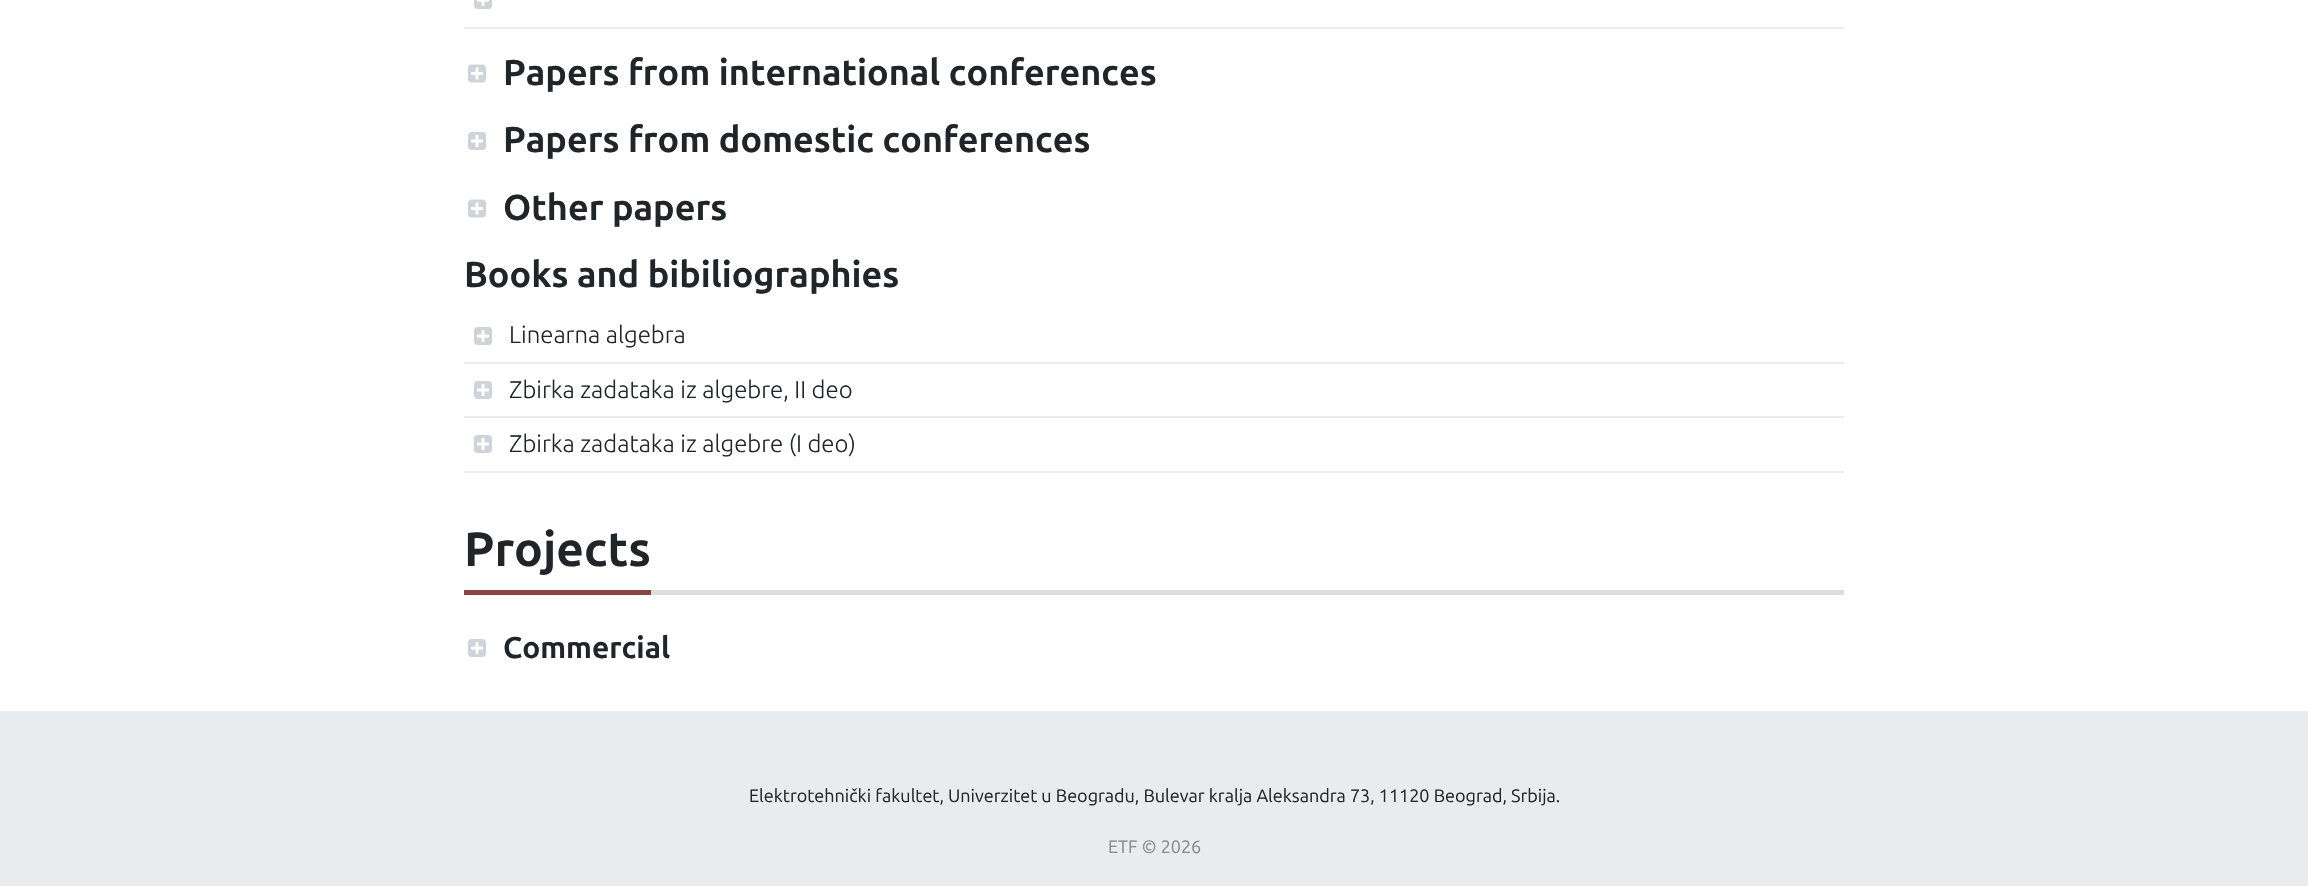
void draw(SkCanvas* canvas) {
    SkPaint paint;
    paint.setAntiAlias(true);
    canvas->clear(0xFFFFFFFF);
    paint.setColor(0xFFE9ECEF);
    canvas->drawRect(SkRect::MakeXYWH(464, 27, 1380, 2), paint);
    canvas->drawImageRect(SkImages::DeferredFromEncodedData(SkData::MakeFromFileName("img1.png")), SkRect::MakeXYWH(474, 0, 18, 9), SkSamplingOptions());
    canvas->drawImageRect(SkImages::DeferredFromEncodedData(SkData::MakeFromFileName("img2.png")), SkRect::MakeXYWH(468, 64, 18, 19), SkSamplingOptions());
    SkFont font1(fontMgr->matchFamilyStyle("Ubuntu", SkFontStyle::Bold()), 36);
    font1.setSubpixel(true);
    paint.setColor(0xFF212529);
    canvas->drawString("Papers from international conferences", 503, 85, font1, paint);
    canvas->drawImageRect(SkImages::DeferredFromEncodedData(SkData::MakeFromFileName("img3.png")), SkRect::MakeXYWH(468, 132, 18, 18), SkSamplingOptions());
    canvas->drawString("Papers from domestic conferences", 503, 152, font1, paint);
    canvas->drawImageRect(SkImages::DeferredFromEncodedData(SkData::MakeFromFileName("img2.png")), SkRect::MakeXYWH(468, 199, 18, 19), SkSamplingOptions());
    canvas->drawString("Other papers", 503, 220, font1, paint);
    canvas->drawString("Books and bibiliographies", 464, 287, font1, paint);
    paint.setColor(0xFFE9ECEF);
    canvas->drawRect(SkRect::MakeXYWH(464, 362, 1380, 2), paint);
    canvas->drawImageRect(SkImages::DeferredFromEncodedData(SkData::MakeFromFileName("img3.png")), SkRect::MakeXYWH(474, 327, 18, 18), SkSamplingOptions());
    SkFont font2(fontMgr->matchFamilyStyle("Ubuntu", SkFontStyle(300, SkFontStyle::kNormal_Width, SkFontStyle::kUpright_Slant)), 24);
    font2.setSubpixel(true);
    paint.setColor(0xFF212529);
    canvas->drawString("Linearna algebra", 509, 343, font2, paint);
    paint.setColor(0xFFE9ECEF);
    canvas->drawRect(SkRect::MakeXYWH(464, 416, 1380, 2), paint);
    canvas->drawImageRect(SkImages::DeferredFromEncodedData(SkData::MakeFromFileName("img3.png")), SkRect::MakeXYWH(474, 381, 18, 18), SkSamplingOptions());
    paint.setColor(0xFF212529);
    canvas->drawString("Zbirka zadataka iz algebre, II deo", 509, 398, font2, paint);
    paint.setColor(0xFFE9ECEF);
    canvas->drawRect(SkRect::MakeXYWH(464, 471, 1380, 2), paint);
    canvas->drawImageRect(SkImages::DeferredFromEncodedData(SkData::MakeFromFileName("img3.png")), SkRect::MakeXYWH(474, 435, 18, 18), SkSamplingOptions());
    paint.setColor(0xFF212529);
    canvas->drawString("Zbirka zadataka iz algebre (I deo)", 509, 452, font2, paint);
    paint.setColor(0xFFDDDDDD);
    canvas->drawRect(SkRect::MakeXYWH(651, 590, 1193, 5), paint);
    paint.setColor(0xFF884541);
    canvas->drawRect(SkRect::MakeXYWH(464, 590, 187, 5), paint);
    SkFont font3(fontMgr->matchFamilyStyle("Ubuntu", SkFontStyle::Bold()), 48);
    font3.setSubpixel(true);
    paint.setColor(0xFF212529);
    canvas->drawString("Projects", 464, 566, font3, paint);
    canvas->drawImageRect(SkImages::DeferredFromEncodedData(SkData::MakeFromFileName("img3.png")), SkRect::MakeXYWH(468, 639, 18, 18), SkSamplingOptions());
    SkFont font4(fontMgr->matchFamilyStyle("Ubuntu", SkFontStyle::Bold()), 30);
    font4.setSubpixel(true);
    canvas->drawString("Commercial", 503, 658, font4, paint);
    paint.setColor(0xFFE9ECEF);
    canvas->drawRect(SkRect::MakeXYWH(0, 711, 2308, 175), paint);
    SkFont font5(fontMgr->matchFamilyStyle("Ubuntu", SkFontStyle::Normal()), 18);
    font5.setSubpixel(true);
    paint.setColor(0xFF212529);
    canvas->drawString("Elektrotehnički fakultet, Univerzitet u Beogradu, Bulevar kralja Aleksandra 73, 11120 Beograd, Srbija.", 749, 802, font5, paint);
    paint.setColor(0xFF888888);
    canvas->drawString("ETF © 2026", 1108, 853, font5, paint);
}
